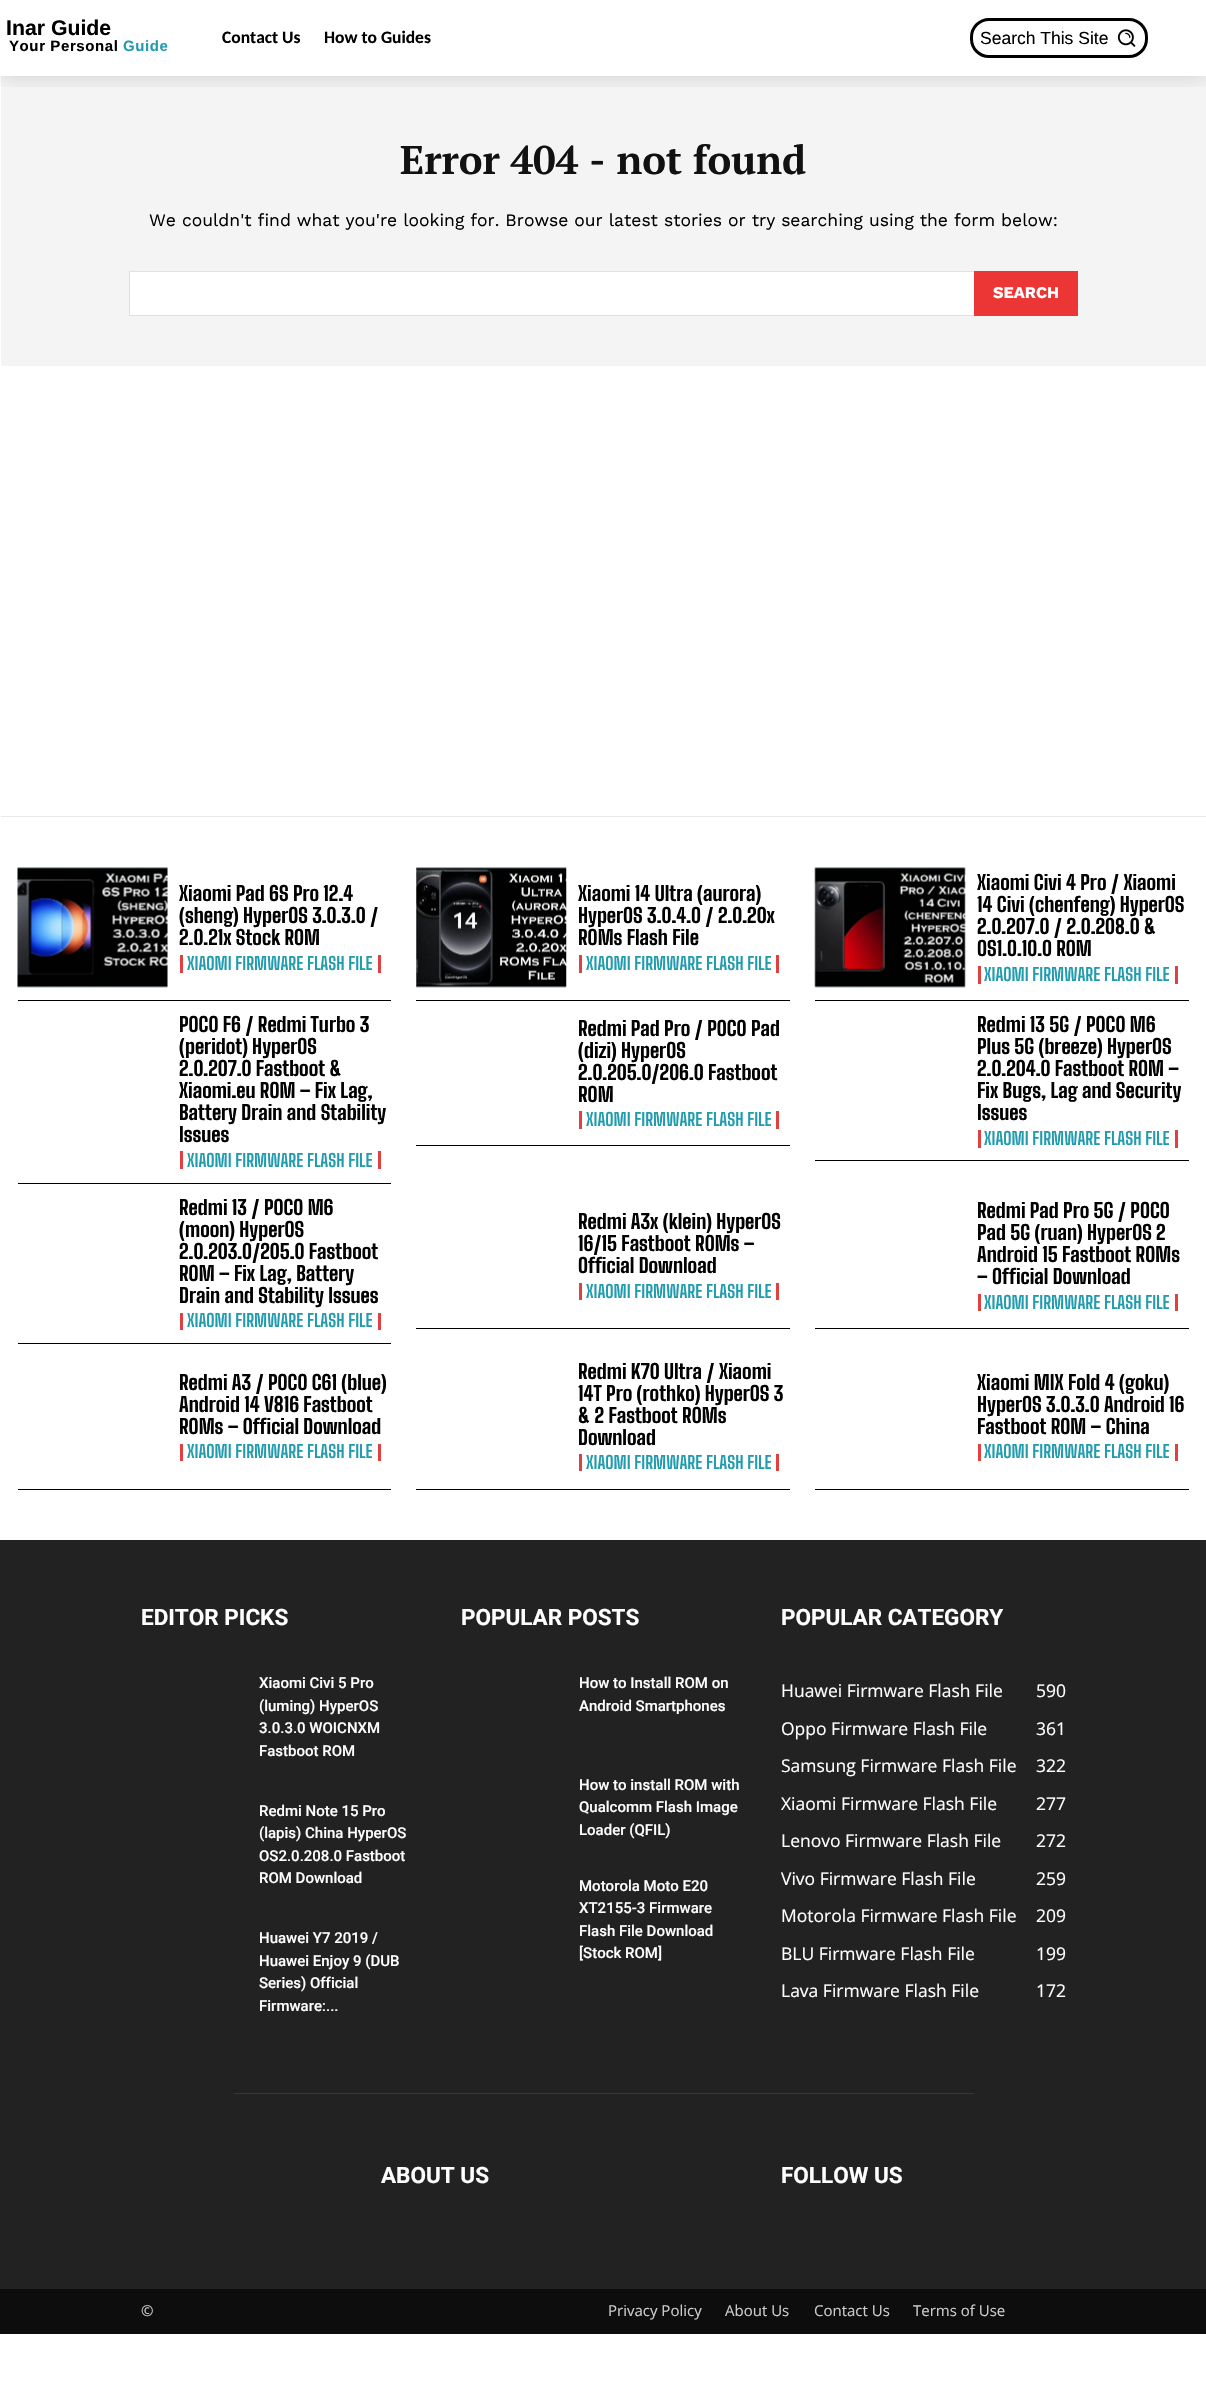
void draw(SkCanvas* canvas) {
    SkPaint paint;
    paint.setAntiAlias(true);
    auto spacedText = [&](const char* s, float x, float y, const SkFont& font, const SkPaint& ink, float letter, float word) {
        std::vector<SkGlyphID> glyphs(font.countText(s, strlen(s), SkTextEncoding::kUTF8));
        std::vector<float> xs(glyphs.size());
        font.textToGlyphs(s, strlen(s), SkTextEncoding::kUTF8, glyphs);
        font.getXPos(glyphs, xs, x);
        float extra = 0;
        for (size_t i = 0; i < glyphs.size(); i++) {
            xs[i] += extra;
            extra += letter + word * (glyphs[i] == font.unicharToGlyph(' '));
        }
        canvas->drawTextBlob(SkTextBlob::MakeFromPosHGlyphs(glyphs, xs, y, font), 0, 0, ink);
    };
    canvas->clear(0xFFFFFFFF);
    paint.setColor(0xFFF4F4F4);
    canvas->drawRect(SkRect::MakeXYWH(1, 76, 1205, 290), paint);
    canvas->save();
    canvas->clipRect(SkRect::MakeXYWH(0, 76, 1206, 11));
    paint.setColor(0x29000000);
    paint.setMaskFilter(SkMaskFilter::MakeBlur(kNormal_SkBlurStyle, 10));
    canvas->drawRect(SkRect::MakeXYWH(0, 0, 1206, 76), paint);
    paint.setMaskFilter(nullptr);
    canvas->restore();
    SkFont font1(fontMgr->matchFamilyStyle("Liberation Sans", SkFontStyle::Bold()), 21.25f);
    font1.setSubpixel(true);
    paint.setColor(0xFF000000);
    canvas->drawString("Inar Guide", 6, 35, font1, paint);
    SkFont font2(fontMgr->matchFamilyStyle("Liberation Sans", SkFontStyle::Bold()), 15);
    font2.setSubpixel(true);
    spacedText("Your Personal", 9, 51, font2, paint, 0.6f, 0);
    paint.setColor(0xFF219CAF);
    spacedText("Guide", 123, 51, font2, paint, 0.6f, 0);
    SkFont font3(fontMgr->matchFamilyStyle("Carlito", SkFontStyle::Bold()), 17.5f);
    font3.setSubpixel(true);
    paint.setColor(0xFF000000);
    canvas->drawString("Contact Us", 222, 43, font3, paint);
    canvas->drawString("How to Guides", 324, 43, font3, paint);
    paint.setStyle(SkPaint::kStroke_Style);
    paint.setStrokeWidth(3);
    canvas->drawRoundRect(SkRect::MakeXYWH(971.5f, 19.5f, 175, 37), 17.5f, 17.5f, paint);
    SkFont font4(fontMgr->matchFamilyStyle("Liberation Sans", SkFontStyle::Normal()), 17.5f);
    font4.setSubpixel(true);
    paint.setStyle(SkPaint::kFill_Style);
    canvas->drawString("Search This Site", 980, 44, font4, paint);
    canvas->drawImageRect(SkImages::DeferredFromEncodedData(SkData::MakeFromFileName("img1.png")), SkRect::MakeXYWH(1117, 29, 19, 18), SkSamplingOptions());
    SkFont font5(fontMgr->matchFamilyStyle("PT Serif", SkFontStyle::Bold()), 40);
    font5.setSubpixel(true);
    paint.setColor(0xFF111111);
    canvas->drawString("Error 404 - not found", 400, 174, font5, paint);
    SkFont font6(fontMgr->matchFamilyStyle("Work Sans", SkFontStyle::Normal()), 17.5f);
    font6.setSubpixel(true);
    paint.setColor(0xFF000000);
    canvas->drawString("We couldn't find what you're looking for. Browse our latest stories or try searching using the form below:", 149, 226, font6, paint);
    paint.setColor(0xFFFFFFFF);
    canvas->drawRect(SkRect::MakeXYWH(130, 272, 844, 43), paint);
    paint.setStyle(SkPaint::kStroke_Style);
    paint.setStrokeWidth(1);
    paint.setColor(0xFFE1E1E1);
    canvas->drawRect(SkRect::MakeXYWH(129.5f, 271.5f, 948, 44), paint);
    paint.setStyle(SkPaint::kFill_Style);
    paint.setColor(0xFFEC3535);
    canvas->drawRect(SkRect::MakeXYWH(974, 271, 104, 45), paint);
    SkFont font7(fontMgr->matchFamilyStyle("Work Sans", SkFontStyle::Bold()), 16.25f);
    font7.setSubpixel(true);
    paint.setColor(0xFFFFFFFF);
    canvas->drawString("SEARCH", 993, 298, font7, paint);
    paint.setColor(0xFFEAEAEA);
    canvas->drawRect(SkRect::MakeXYWH(1, 816, 1205, 1), paint);
    paint.setColor(0xFF000000);
    canvas->drawRect(SkRect::MakeXYWH(18, 1000, 373, 1), paint);
    canvas->drawImageRect(SkImages::DeferredFromEncodedData(SkData::MakeFromFileName("img2.png")), SkRect::MakeXYWH(17, 867, 151, 121), SkSamplingOptions());
    SkFont font8(fontMgr->matchFamilyStyle("Big Shoulders Text", SkFontStyle(800, SkFontStyle::kNormal_Width, SkFontStyle::kUpright_Slant)), 20);
    font8.setSubpixel(true);
    canvas->drawString("Xiaomi Pad 6S Pro 12.4", 179, 901, font8, paint);
    canvas->drawString("(sheng) HyperOS 3.0.3.0 /", 179, 923, font8, paint);
    canvas->drawString("2.0.21x Stock ROM", 179, 945, font8, paint);
    paint.setColor(0xFFE04040);
    canvas->drawRect(SkRect::MakeXYWH(378, 955, 3, 18), paint);
    canvas->drawRect(SkRect::MakeXYWH(180, 955, 3, 18), paint);
    SkFont font9(fontMgr->matchFamilyStyle("Big Shoulders Text", SkFontStyle::Bold()), 17.5f);
    font9.setSubpixel(true);
    paint.setColor(0xFF219CAF);
    canvas->drawString("XIAOMI FIRMWARE FLASH FILE", 187, 970, font9, paint);
    paint.setColor(0xFF000000);
    canvas->drawRect(SkRect::MakeXYWH(416, 1000, 374, 1), paint);
    canvas->drawImageRect(SkImages::DeferredFromEncodedData(SkData::MakeFromFileName("img3.png")), SkRect::MakeXYWH(416, 867, 151, 121), SkSamplingOptions());
    canvas->drawString("Xiaomi 14 Ultra (aurora)", 578, 901, font8, paint);
    canvas->drawString("HyperOS 3.0.4.0 / 2.0.20x", 578, 923, font8, paint);
    canvas->drawString("ROMs Flash File", 578, 945, font8, paint);
    paint.setColor(0xFFE04040);
    canvas->drawRect(SkRect::MakeXYWH(776, 955, 3, 18), paint);
    canvas->drawRect(SkRect::MakeXYWH(579, 955, 3, 18), paint);
    paint.setColor(0xFF219CAF);
    canvas->drawString("XIAOMI FIRMWARE FLASH FILE", 586, 970, font9, paint);
    paint.setColor(0xFF000000);
    canvas->drawRect(SkRect::MakeXYWH(815, 1000, 374, 1), paint);
    canvas->drawImageRect(SkImages::DeferredFromEncodedData(SkData::MakeFromFileName("img4.png")), SkRect::MakeXYWH(814, 867, 152, 121), SkSamplingOptions());
    canvas->drawString("Xiaomi Civi 4 Pro / Xiaomi", 977, 890, font8, paint);
    canvas->drawString("14 Civi (chenfeng) HyperOS", 977, 912, font8, paint);
    canvas->drawString("2.0.207.0 / 2.0.208.0 &", 977, 934, font8, paint);
    canvas->drawString("OS1.0.10.0 ROM", 977, 956, font8, paint);
    paint.setColor(0xFFE04040);
    canvas->drawRect(SkRect::MakeXYWH(1175, 966, 3, 18), paint);
    canvas->drawRect(SkRect::MakeXYWH(978, 966, 3, 18), paint);
    paint.setColor(0xFF219CAF);
    canvas->drawString("XIAOMI FIRMWARE FLASH FILE", 984, 981, font9, paint);
    paint.setColor(0xFF000000);
    canvas->drawRect(SkRect::MakeXYWH(18, 1183, 373, 1), paint);
    canvas->drawString("POCO F6 / Redmi Turbo 3", 179, 1032, font8, paint);
    canvas->drawString("(peridot) HyperOS", 179, 1054, font8, paint);
    canvas->drawString("2.0.207.0 Fastboot &", 179, 1076, font8, paint);
    canvas->drawString("Xiaomi.eu ROM – Fix Lag,", 179, 1098, font8, paint);
    canvas->drawString("Battery Drain and Stability", 179, 1120, font8, paint);
    canvas->drawString("Issues", 179, 1142, font8, paint);
    paint.setColor(0xFFE04040);
    canvas->drawRect(SkRect::MakeXYWH(378, 1151, 3, 18), paint);
    canvas->drawRect(SkRect::MakeXYWH(180, 1151, 3, 18), paint);
    paint.setColor(0xFF219CAF);
    canvas->drawString("XIAOMI FIRMWARE FLASH FILE", 187, 1167, font9, paint);
    paint.setColor(0xFF000000);
    canvas->drawRect(SkRect::MakeXYWH(416, 1145, 374, 1), paint);
    canvas->drawString("Redmi Pad Pro / POCO Pad", 578, 1036, font8, paint);
    canvas->drawString("(dizi) HyperOS", 578, 1058, font8, paint);
    canvas->drawString("2.0.205.0/206.0 Fastboot", 578, 1080, font8, paint);
    canvas->drawString("ROM", 578, 1102, font8, paint);
    paint.setColor(0xFFE04040);
    canvas->drawRect(SkRect::MakeXYWH(776, 1111, 3, 18), paint);
    canvas->drawRect(SkRect::MakeXYWH(579, 1111, 3, 18), paint);
    paint.setColor(0xFF219CAF);
    canvas->drawString("XIAOMI FIRMWARE FLASH FILE", 586, 1126, font9, paint);
    paint.setColor(0xFF000000);
    canvas->drawRect(SkRect::MakeXYWH(815, 1160, 374, 1), paint);
    canvas->drawString("Redmi 13 5G / POCO M6", 977, 1032, font8, paint);
    canvas->drawString("Plus 5G (breeze) HyperOS", 977, 1054, font8, paint);
    canvas->drawString("2.0.204.0 Fastboot ROM –", 977, 1076, font8, paint);
    canvas->drawString("Fix Bugs, Lag and Security", 977, 1098, font8, paint);
    canvas->drawString("Issues", 977, 1120, font8, paint);
    paint.setColor(0xFFE04040);
    canvas->drawRect(SkRect::MakeXYWH(1175, 1130, 3, 18), paint);
    canvas->drawRect(SkRect::MakeXYWH(978, 1130, 3, 18), paint);
    paint.setColor(0xFF219CAF);
    canvas->drawString("XIAOMI FIRMWARE FLASH FILE", 984, 1145, font9, paint);
    paint.setColor(0xFF000000);
    canvas->drawRect(SkRect::MakeXYWH(18, 1343, 373, 1), paint);
    canvas->drawString("Redmi 13 / POCO M6", 179, 1215, font8, paint);
    canvas->drawString("(moon) HyperOS", 179, 1237, font8, paint);
    canvas->drawString("2.0.203.0/205.0 Fastboot", 179, 1259, font8, paint);
    canvas->drawString("ROM – Fix Lag, Battery", 179, 1281, font8, paint);
    canvas->drawString("Drain and Stability Issues", 179, 1303, font8, paint);
    paint.setColor(0xFFE04040);
    canvas->drawRect(SkRect::MakeXYWH(378, 1313, 3, 17), paint);
    canvas->drawRect(SkRect::MakeXYWH(180, 1313, 3, 17), paint);
    paint.setColor(0xFF219CAF);
    canvas->drawString("XIAOMI FIRMWARE FLASH FILE", 187, 1327, font9, paint);
    paint.setColor(0xFF000000);
    canvas->drawRect(SkRect::MakeXYWH(416, 1328, 374, 1), paint);
    canvas->drawString("Redmi A3x (klein) HyperOS", 578, 1229, font8, paint);
    canvas->drawString("16/15 Fastboot ROMs –", 578, 1251, font8, paint);
    canvas->drawString("Official Download", 578, 1273, font8, paint);
    paint.setColor(0xFFE04040);
    canvas->drawRect(SkRect::MakeXYWH(776, 1283, 3, 17), paint);
    canvas->drawRect(SkRect::MakeXYWH(579, 1283, 3, 17), paint);
    paint.setColor(0xFF219CAF);
    canvas->drawString("XIAOMI FIRMWARE FLASH FILE", 586, 1298, font9, paint);
    paint.setColor(0xFF000000);
    canvas->drawRect(SkRect::MakeXYWH(815, 1328, 374, 1), paint);
    canvas->drawString("Redmi Pad Pro 5G / POCO", 977, 1218, font8, paint);
    canvas->drawString("Pad 5G (ruan) HyperOS 2", 977, 1240, font8, paint);
    canvas->drawString("Android 15 Fastboot ROMs", 977, 1262, font8, paint);
    canvas->drawString("– Official Download", 977, 1284, font8, paint);
    paint.setColor(0xFFE04040);
    canvas->drawRect(SkRect::MakeXYWH(1175, 1294, 3, 17), paint);
    canvas->drawRect(SkRect::MakeXYWH(978, 1294, 3, 17), paint);
    paint.setColor(0xFF219CAF);
    canvas->drawString("XIAOMI FIRMWARE FLASH FILE", 984, 1309, font9, paint);
    paint.setColor(0xFF000000);
    canvas->drawRect(SkRect::MakeXYWH(18, 1489, 373, 1), paint);
    canvas->drawString("Redmi A3 / POCO C61 (blue)", 179, 1390, font8, paint);
    canvas->drawString("Android 14 V816 Fastboot", 179, 1412, font8, paint);
    canvas->drawString("ROMs – Official Download", 179, 1434, font8, paint);
    paint.setColor(0xFFE04040);
    canvas->drawRect(SkRect::MakeXYWH(378, 1444, 3, 17), paint);
    canvas->drawRect(SkRect::MakeXYWH(180, 1444, 3, 17), paint);
    paint.setColor(0xFF219CAF);
    canvas->drawString("XIAOMI FIRMWARE FLASH FILE", 187, 1458, font9, paint);
    paint.setColor(0xFF000000);
    canvas->drawRect(SkRect::MakeXYWH(416, 1489, 374, 1), paint);
    canvas->drawString("Redmi K70 Ultra / Xiaomi", 578, 1379, font8, paint);
    canvas->drawString("14T Pro (rothko) HyperOS 3", 578, 1401, font8, paint);
    canvas->drawString("& 2 Fastboot ROMs", 578, 1423, font8, paint);
    canvas->drawString("Download", 578, 1445, font8, paint);
    paint.setColor(0xFFE04040);
    canvas->drawRect(SkRect::MakeXYWH(776, 1454, 3, 17), paint);
    canvas->drawRect(SkRect::MakeXYWH(579, 1454, 3, 17), paint);
    paint.setColor(0xFF219CAF);
    canvas->drawString("XIAOMI FIRMWARE FLASH FILE", 586, 1469, font9, paint);
    paint.setColor(0xFF000000);
    canvas->drawRect(SkRect::MakeXYWH(815, 1489, 374, 1), paint);
    canvas->drawString("Xiaomi MIX Fold 4 (goku)", 977, 1390, font8, paint);
    canvas->drawString("HyperOS 3.0.3.0 Android 16", 977, 1412, font8, paint);
    canvas->drawString("Fastboot ROM – China", 977, 1434, font8, paint);
    paint.setColor(0xFFE04040);
    canvas->drawRect(SkRect::MakeXYWH(1175, 1444, 3, 17), paint);
    canvas->drawRect(SkRect::MakeXYWH(978, 1444, 3, 17), paint);
    paint.setColor(0xFF219CAF);
    canvas->drawString("XIAOMI FIRMWARE FLASH FILE", 984, 1458, font9, paint);
    paint.setColor(0xFF222222);
    canvas->drawRect(SkRect::MakeXYWH(0, 1540, 1206, 749), paint);
    SkFont font10(fontMgr->matchFamilyStyle("Roboto", SkFontStyle::Bold()), 22.5f);
    font10.setSubpixel(true);
    paint.setColor(0xFFFFFFFF);
    canvas->drawString("EDITOR PICKS", 141, 1625, font10, paint);
    SkFont font11(fontMgr->matchFamilyStyle("Roboto", SkFontStyle(500, SkFontStyle::kNormal_Width, SkFontStyle::kUpright_Slant)), 15);
    font11.setSubpixel(true);
    canvas->drawString("Xiaomi Civi 5 Pro", 259, 1688, font11, paint);
    canvas->drawString("(luming) HyperOS", 259, 1711, font11, paint);
    canvas->drawString("3.0.3.0 WOICNXM", 259, 1733, font11, paint);
    canvas->drawString("Fastboot ROM", 259, 1756, font11, paint);
    canvas->drawString("Redmi Note 15 Pro", 259, 1816, font11, paint);
    canvas->drawString("(lapis) China HyperOS", 259, 1838, font11, paint);
    canvas->drawString("OS2.0.208.0 Fastboot", 259, 1861, font11, paint);
    canvas->drawString("ROM Download", 259, 1883, font11, paint);
    canvas->drawString("Huawei Y7 2019 /", 259, 1943, font11, paint);
    canvas->drawString("Huawei Enjoy 9 (DUB", 259, 1966, font11, paint);
    canvas->drawString("Series) Official", 259, 1988, font11, paint);
    canvas->drawString("Firmware:...", 259, 2011, font11, paint);
    canvas->drawString("POPULAR POSTS", 461, 1625, font10, paint);
    canvas->drawString("How to Install ROM on", 579, 1688, font11, paint);
    canvas->drawString("Android Smartphones", 579, 1711, font11, paint);
    canvas->drawString("How to install ROM with", 579, 1790, font11, paint);
    canvas->drawString("Qualcomm Flash Image", 579, 1812, font11, paint);
    canvas->drawString("Loader (QFIL)", 579, 1835, font11, paint);
    canvas->drawString("Motorola Moto E20", 579, 1891, font11, paint);
    canvas->drawString("XT2155-3 Firmware", 579, 1913, font11, paint);
    canvas->drawString("Flash File Download", 579, 1936, font11, paint);
    canvas->drawString("[Stock ROM]", 579, 1958, font11, paint);
    canvas->drawString("POPULAR CATEGORY", 781, 1625, font10, paint);
    SkFont font12(fontMgr->matchFamilyStyle("Open Sans", SkFontStyle::Normal()), 17.5f);
    font12.setSubpixel(true);
    canvas->drawString("Huawei Firmware Flash File", 781, 1697, font12, paint);
    canvas->drawString("590", 1036, 1697, font12, paint);
    canvas->drawString("Oppo Firmware Flash File", 781, 1735, font12, paint);
    canvas->drawString("361", 1036, 1735, font12, paint);
    canvas->drawString("Samsung Firmware Flash File", 781, 1772, font12, paint);
    canvas->drawString("322", 1036, 1772, font12, paint);
    canvas->drawString("Xiaomi Firmware Flash File", 781, 1810, font12, paint);
    canvas->drawString("277", 1036, 1810, font12, paint);
    canvas->drawString("Lenovo Firmware Flash File", 781, 1847, font12, paint);
    canvas->drawString("272", 1036, 1847, font12, paint);
    canvas->drawString("Vivo Firmware Flash File", 781, 1885, font12, paint);
    canvas->drawString("259", 1036, 1885, font12, paint);
    canvas->drawString("Motorola Firmware Flash File", 781, 1922, font12, paint);
    canvas->drawString("209", 1036, 1922, font12, paint);
    canvas->drawString("BLU Firmware Flash File", 781, 1960, font12, paint);
    canvas->drawString("199", 1036, 1960, font12, paint);
    canvas->drawString("Lava Firmware Flash File", 781, 1997, font12, paint);
    canvas->drawString("172", 1036, 1997, font12, paint);
    paint.setColor(0xFF383838);
    canvas->drawRect(SkRect::MakeXYWH(234, 2093, 740, 1), paint);
    paint.setColor(0xFFFFFFFF);
    canvas->drawString("ABOUT US", 381, 2183, font10, paint);
    canvas->drawString("FOLLOW US", 781, 2183, font10, paint);
    paint.setColor(0xFF0D0D0D);
    canvas->drawRect(SkRect::MakeXYWH(0, 2289, 1206, 45), paint);
    SkFont font13(fontMgr->matchFamilyStyle("Open Sans", SkFontStyle::Normal()), 15);
    font13.setSubpixel(true);
    paint.setColor(0xFFCCCCCC);
    canvas->drawString("©", 141, 2316, font13, paint);
    canvas->drawString("Privacy Policy", 608, 2316, font13, paint);
    canvas->drawString("About Us", 725, 2316, font13, paint);
    canvas->drawString("Contact Us", 814, 2316, font13, paint);
    canvas->drawString("Terms of Use", 913, 2316, font13, paint);
}
